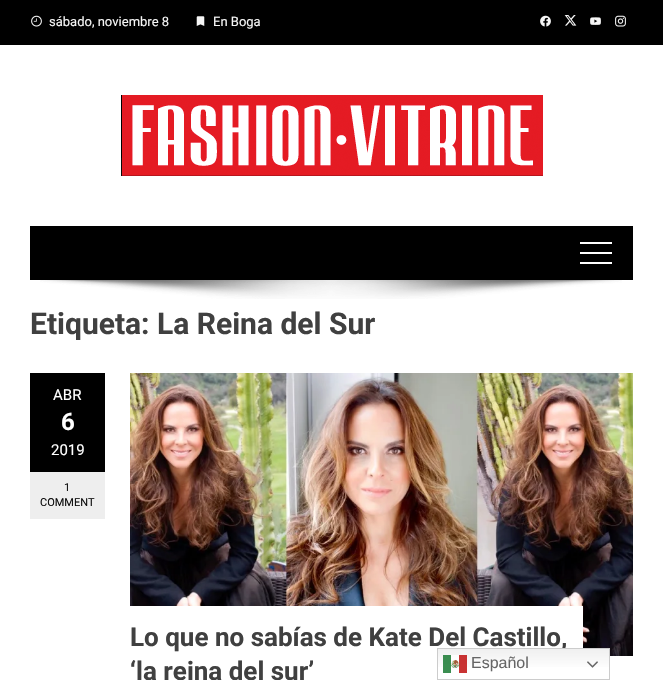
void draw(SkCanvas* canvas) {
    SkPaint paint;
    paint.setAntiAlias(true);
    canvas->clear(0xFFFFFFFF);
    paint.setColor(0xFF000000);
    canvas->drawRect(SkRect::MakeXYWH(0, 0, 663, 45), paint);
    canvas->drawImageRect(SkImages::DeferredFromEncodedData(SkData::MakeFromFileName("img1.png")), SkRect::MakeXYWH(31, 15, 11, 12), SkSamplingOptions());
    SkFont font1(fontMgr->matchFamilyStyle("Roboto", SkFontStyle::Normal()), 13);
    font1.setSubpixel(true);
    paint.setColor(0xFFF6F6F6);
    canvas->drawString("sábado, noviembre 8", 49, 26, font1, paint);
    canvas->drawImageRect(SkImages::DeferredFromEncodedData(SkData::MakeFromFileName("img2.png")), SkRect::MakeXYWH(196, 16, 9, 10), SkSamplingOptions());
    canvas->drawString("En Boga", 213, 26, font1, paint);
    canvas->drawImageRect(SkImages::DeferredFromEncodedData(SkData::MakeFromFileName("img3.png")), SkRect::MakeXYWH(540, 15, 11, 12), SkSamplingOptions());
    canvas->drawImageRect(SkImages::DeferredFromEncodedData(SkData::MakeFromFileName("img4.png")), SkRect::MakeXYWH(564, 15, 13, 11), SkSamplingOptions());
    canvas->drawImageRect(SkImages::DeferredFromEncodedData(SkData::MakeFromFileName("img5.png")), SkRect::MakeXYWH(590, 17, 11, 8), SkSamplingOptions());
    canvas->drawImageRect(SkImages::DeferredFromEncodedData(SkData::MakeFromFileName("img6.png")), SkRect::MakeXYWH(615, 15, 11, 12), SkSamplingOptions());
    canvas->drawImageRect(SkImages::DeferredFromEncodedData(SkData::MakeFromFileName("img7.png")), SkRect::MakeXYWH(121, 95, 422, 81), SkSamplingOptions());
    paint.setColor(0xFF000000);
    canvas->drawRect(SkRect::MakeXYWH(30, 226, 603, 54), paint);
    paint.setColor(0xFFFFFFFF);
    canvas->drawRect(SkRect::MakeXYWH(580, 242, 32, 2), paint);
    canvas->drawRect(SkRect::MakeXYWH(580, 262, 32, 2), paint);
    canvas->drawRect(SkRect::MakeXYWH(580, 252, 32, 2), paint);
    canvas->drawImageRect(SkImages::DeferredFromEncodedData(SkData::MakeFromFileName("img8.png")), SkRect::MakeXYWH(40, 280, 582, 19), SkSamplingOptions());
    SkFont font2(fontMgr->matchFamilyStyle("Roboto", SkFontStyle::Bold()), 30);
    font2.setSubpixel(true);
    paint.setColor(0xFF404040);
    canvas->drawString("Etiqueta: La Reina del Sur", 30, 334, font2, paint);
    paint.setColor(0xFF000000);
    canvas->drawRect(SkRect::MakeXYWH(30, 373, 75, 99), paint);
    SkFont font3(fontMgr->matchFamilyStyle("Roboto", SkFontStyle::Normal()), 15);
    font3.setSubpixel(true);
    paint.setColor(0xFFFFFFFF);
    canvas->drawString("ABR", 53, 400, font3, paint);
    SkFont font4(fontMgr->matchFamilyStyle("Roboto", SkFontStyle::Bold()), 24);
    font4.setSubpixel(true);
    canvas->drawString("6", 61, 430, font4, paint);
    canvas->drawString("2019", 51, 455, font3, paint);
    paint.setColor(0xFFEEEEEE);
    canvas->drawRect(SkRect::MakeXYWH(30, 472, 75, 47), paint);
    SkFont font5(fontMgr->matchFamilyStyle("Roboto", SkFontStyle::Normal()), 11);
    font5.setSubpixel(true);
    paint.setColor(0xFF0E0E0E);
    canvas->drawString("1", 64, 491, font5, paint);
    canvas->drawString("COMMENT", 40, 506, font5, paint);
    canvas->drawImageRect(SkImages::DeferredFromEncodedData(SkData::MakeFromFileName("img9.png")), SkRect::MakeXYWH(130, 373, 503, 283), SkSamplingOptions());
    paint.setColor(0xFFFFFFFF);
    canvas->drawRect(SkRect::MakeXYWH(130, 606, 453, 50), paint);
    SkFont font6(fontMgr->matchFamilyStyle("Roboto", SkFontStyle::Bold()), 26);
    font6.setSubpixel(true);
    paint.setColor(0xFF404040);
    canvas->drawString("Lo que no sabías de Kate Del Castillo,", 130, 646, font6, paint);
    canvas->drawString("‘la reina del sur’", 130, 680, font6, paint);
    {
        const SkColor colors[] = {0xFFEFEFEF, 0xFFFFFFFF};
        const float stops[] = {0, 0.7f};
        const SkPoint ends[] = {{524, 648}, {524, 680}};
        paint.setShader(SkGradientShader::MakeLinear(ends, colors, stops, 2, SkTileMode::kClamp));
        paint.setAlpha(255);
    }
    canvas->drawRect(SkRect::MakeXYWH(438, 649, 171, 18), paint);
    paint.setStyle(SkPaint::kStroke_Style);
    paint.setStrokeWidth(1);
    paint.setShader(nullptr);
    paint.setColor(0xFFCCCCCC);
    canvas->drawRect(SkRect::MakeXYWH(437.5f, 648.5f, 172, 31), paint);
    canvas->drawImageRect(SkImages::DeferredFromEncodedData(SkData::MakeFromFileName("img10.png")), SkRect::MakeXYWH(443, 655, 24, 18), SkSamplingOptions());
    SkFont font7(fontMgr->matchFamilyStyle("Liberation Sans", SkFontStyle::Normal()), 16);
    font7.setSubpixel(true);
    paint.setStyle(SkPaint::kFill_Style);
    paint.setColor(0xFF666666);
    canvas->drawString("Español", 471, 668, font7, paint);
    canvas->drawImageRect(SkImages::DeferredFromEncodedData(SkData::MakeFromFileName("img11.png")), SkRect::MakeXYWH(587, 661, 11, 7), SkSamplingOptions());
}
